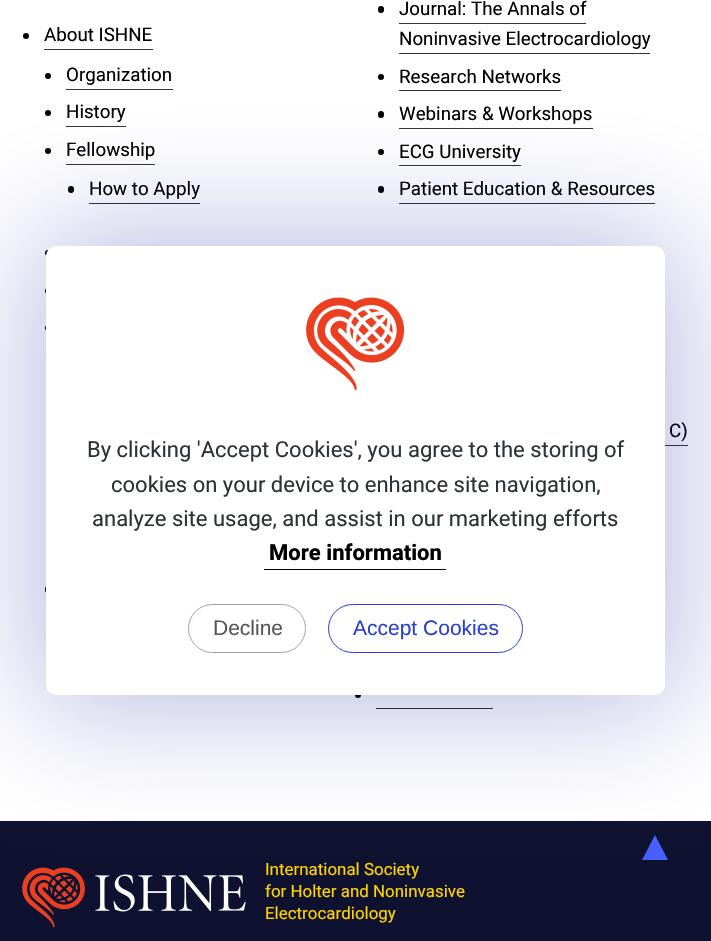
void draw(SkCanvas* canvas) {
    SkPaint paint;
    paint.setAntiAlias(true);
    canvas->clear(0xFFFFFFFF);
    paint.setColor(0xFF000000);
    canvas->drawCircle(26, 36, 3, paint);
    SkFont font1(fontMgr->matchFamilyStyle("Heebo", SkFontStyle::Normal()), 18.75f);
    font1.setSubpixel(true);
    canvas->drawString("About ISHNE", 44, 41, font1, paint);
    paint.setColor(0xFF333333);
    canvas->drawRect(SkRect::MakeXYWH(44, 49, 109, 1), paint);
    paint.setColor(0xFF000000);
    canvas->drawCircle(48, 76, 3, paint);
    canvas->drawString("Organization", 66, 81, font1, paint);
    paint.setColor(0xFF333333);
    canvas->drawRect(SkRect::MakeXYWH(66, 89, 107, 1), paint);
    paint.setColor(0xFF000000);
    canvas->drawCircle(48, 113, 3, paint);
    canvas->drawString("History", 66, 118, font1, paint);
    paint.setColor(0xFF333333);
    canvas->drawRect(SkRect::MakeXYWH(66, 126, 60, 1), paint);
    paint.setColor(0xFF000000);
    canvas->drawCircle(48, 151, 3, paint);
    canvas->drawString("Fellowship", 66, 156, font1, paint);
    paint.setColor(0xFF333333);
    canvas->drawRect(SkRect::MakeXYWH(66, 164, 89, 1), paint);
    paint.setColor(0xFF000000);
    canvas->drawRoundRect(SkRect::MakeXYWH(68, 186, 6, 7), 3, 3, paint);
    canvas->drawString("How to Apply", 89, 195, font1, paint);
    paint.setColor(0xFF333333);
    canvas->drawRect(SkRect::MakeXYWH(89, 203, 111, 1), paint);
    paint.setColor(0xFF000000);
    canvas->drawCircle(48, 253, 3, paint);
    canvas->drawCircle(48, 291, 3, paint);
    canvas->drawCircle(48, 328, 3, paint);
    canvas->drawRoundRect(SkRect::MakeXYWH(45, 586, 6, 7), 3, 3, paint);
    canvas->drawRoundRect(SkRect::MakeXYWH(378, 6, 6, 7), 3, 3, paint);
    canvas->drawString("Journal: The Annals of", 399, 15, font1, paint);
    paint.setColor(0xFF333333);
    canvas->drawRect(SkRect::MakeXYWH(399, 23, 187, 1), paint);
    paint.setColor(0xFF000000);
    canvas->drawString("Noninvasive Electrocardiology", 399, 45, font1, paint);
    paint.setColor(0xFF333333);
    canvas->drawRect(SkRect::MakeXYWH(399, 53, 251, 1), paint);
    paint.setColor(0xFF000000);
    canvas->drawCircle(381, 77, 3, paint);
    canvas->drawString("Research Networks", 399, 83, font1, paint);
    paint.setColor(0xFF333333);
    canvas->drawRect(SkRect::MakeXYWH(399, 90, 162, 1), paint);
    paint.setColor(0xFF000000);
    canvas->drawRoundRect(SkRect::MakeXYWH(378, 111, 6, 7), 3, 3, paint);
    canvas->drawString("Webinars & Workshops", 399, 120, font1, paint);
    paint.setColor(0xFF333333);
    canvas->drawRect(SkRect::MakeXYWH(399, 128, 194, 1), paint);
    paint.setColor(0xFF000000);
    canvas->drawCircle(381, 152, 3, paint);
    canvas->drawString("ECG University", 399, 158, font1, paint);
    paint.setColor(0xFF333333);
    canvas->drawRect(SkRect::MakeXYWH(399, 165, 122, 1), paint);
    paint.setColor(0xFF000000);
    canvas->drawRoundRect(SkRect::MakeXYWH(378, 186, 6, 7), 3, 3, paint);
    canvas->drawString("Patient Education & Resources", 399, 195, font1, paint);
    paint.setColor(0xFF333333);
    canvas->drawRect(SkRect::MakeXYWH(399, 203, 256, 1), paint);
    paint.setColor(0xFF000000);
    canvas->drawString("C)", 669, 437, font1, paint);
    paint.setColor(0xFF333333);
    canvas->drawRect(SkRect::MakeXYWH(665, 445, 23, 1), paint);
    paint.setColor(0xFF000000);
    canvas->drawRoundRect(SkRect::MakeXYWH(355, 691, 6, 7), 3, 3, paint);
    paint.setColor(0xFF333333);
    canvas->drawRect(SkRect::MakeXYWH(376, 708, 117, 1), paint);
    paint.setColor(0xFF0E1230);
    canvas->drawRect(SkRect::MakeXYWH(0, 821, 711, 120), paint);
    paint.setColor(0xFF465FFF);
    canvas->drawPath(SkPathBuilder().moveTo(668, 860).lineTo(642, 860).lineTo(655, 835).close().detach(), paint);
    canvas->drawImageRect(SkImages::DeferredFromEncodedData(SkData::MakeFromFileName("img2.png")), SkRect::MakeXYWH(22, 867, 224, 61), SkSamplingOptions());
    paint.setColor(0x4D10199B);
    paint.setMaskFilter(SkMaskFilter::MakeBlur(kNormal_SkBlurStyle, 62.5f));
    canvas->drawRoundRect(SkRect::MakeXYWH(34, 234, 644, 474), 23, 23, paint);
    paint.setMaskFilter(nullptr);
    paint.setColor(0xFFFFFFFF);
    canvas->drawRoundRect(SkRect::MakeXYWH(46, 246, 619, 449), 10, 10, paint);
    canvas->drawImageRect(SkImages::DeferredFromEncodedData(SkData::MakeFromFileName("img1.png")), SkRect::MakeXYWH(306, 297, 99, 93), SkSamplingOptions());
    SkFont font2(fontMgr->matchFamilyStyle("Heebo", SkFontStyle::Normal()), 22);
    font2.setSubpixel(true);
    paint.setColor(0xFF2C3337);
    canvas->drawString("By clicking 'Accept Cookies', you agree to the storing of", 87, 457, font2, paint);
    canvas->drawString("cookies on your device to enhance site navigation,", 111, 492, font2, paint);
    canvas->drawString("analyze site usage, and assist in our marketing efforts", 92, 526, font2, paint);
    paint.setColor(0xFF000000);
    canvas->drawRect(SkRect::MakeXYWH(264, 569, 182, 1), paint);
    SkFont font3(fontMgr->matchFamilyStyle("Heebo", SkFontStyle::Bold()), 22);
    font3.setSubpixel(true);
    canvas->drawString("More information", 269, 560, font3, paint);
    paint.setStyle(SkPaint::kStroke_Style);
    paint.setStrokeWidth(1);
    paint.setColor(0xFFA2A2A2);
    canvas->drawRoundRect(SkRect::MakeXYWH(188.5f, 604.5f, 117, 48), 24, 24, paint);
    SkFont font4(fontMgr->matchFamilyStyle("Liberation Sans", SkFontStyle::Normal()), 21);
    font4.setSubpixel(true);
    paint.setStyle(SkPaint::kFill_Style);
    paint.setColor(0xFF575555);
    canvas->drawString("Decline", 213, 635, font4, paint);
    paint.setStyle(SkPaint::kStroke_Style);
    paint.setColor(0xFF2A40CD);
    canvas->drawRoundRect(SkRect::MakeXYWH(328.5f, 604.5f, 194, 48), 24, 24, paint);
    paint.setStyle(SkPaint::kFill_Style);
    canvas->drawString("Accept Cookies", 353, 635, font4, paint);
    SkFont font5(fontMgr->matchFamilyStyle("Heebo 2", SkFontStyle::Normal()), 16.9f);
    font5.setSubpixel(true);
    paint.setColor(0xFFFFD200);
    canvas->drawString("International Society", 265, 875, font5, paint);
    canvas->drawString("for Holter and Noninvasive", 265, 897, font5, paint);
    canvas->drawString("Electrocardiology", 265, 919, font5, paint);
}
